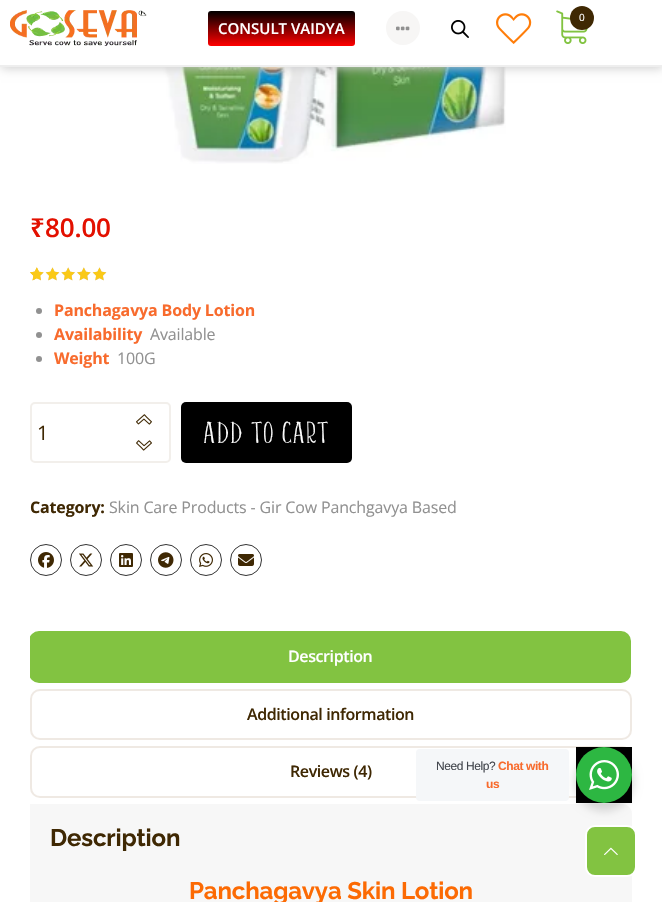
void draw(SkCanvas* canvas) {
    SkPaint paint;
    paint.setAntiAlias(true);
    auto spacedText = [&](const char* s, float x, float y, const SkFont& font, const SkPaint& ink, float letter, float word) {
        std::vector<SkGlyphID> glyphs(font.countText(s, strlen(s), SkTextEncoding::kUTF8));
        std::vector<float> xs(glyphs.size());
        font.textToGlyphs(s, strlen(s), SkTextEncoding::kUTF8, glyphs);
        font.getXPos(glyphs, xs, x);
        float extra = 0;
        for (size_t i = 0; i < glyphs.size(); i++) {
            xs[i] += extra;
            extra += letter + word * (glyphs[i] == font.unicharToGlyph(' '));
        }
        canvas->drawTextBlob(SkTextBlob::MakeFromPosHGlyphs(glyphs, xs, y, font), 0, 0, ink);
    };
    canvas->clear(0xFFFFFFFF);
    canvas->drawImageRect(SkImages::DeferredFromEncodedData(SkData::MakeFromFileName("img6.png")), SkRect::MakeXYWH(157, 67, 349, 97), SkSamplingOptions());
    paint.setColor(0xFFCCCCCC);
    paint.setMaskFilter(SkMaskFilter::MakeBlur(kNormal_SkBlurStyle, 5));
    canvas->drawRect(SkRect::MakeXYWH(1, -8, 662, 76), paint);
    paint.setMaskFilter(nullptr);
    paint.setColor(0xFFFFFFFF);
    canvas->drawRect(SkRect::MakeXYWH(0, 0, 662, 65), paint);
    paint.setColor(0xFFEEEEEE);
    canvas->drawRect(SkRect::MakeXYWH(0, 65, 662, 2), paint);
    canvas->drawImageRect(SkImages::DeferredFromEncodedData(SkData::MakeFromFileName("img1.png")), SkRect::MakeXYWH(10, 10, 137, 36), SkSamplingOptions());
    paint.setColor(0xFFF7F6F5);
    canvas->drawCircle(403, 28, 17, paint);
    canvas->drawImageRect(SkImages::DeferredFromEncodedData(SkData::MakeFromFileName("img2.png")), SkRect::MakeXYWH(396, 26, 14, 5), SkSamplingOptions());
    canvas->drawImageRect(SkImages::DeferredFromEncodedData(SkData::MakeFromFileName("img3.png")), SkRect::MakeXYWH(496, 13, 36, 31), SkSamplingOptions());
    canvas->drawImageRect(SkImages::DeferredFromEncodedData(SkData::MakeFromFileName("img4.png")), SkRect::MakeXYWH(556, 10, 32, 34), SkSamplingOptions());
    paint.setColor(0xFF3F2803);
    canvas->drawCircle(582, 18, 12, paint);
    SkFont font1(fontMgr->matchFamilyStyle("Open Sans", SkFontStyle::Normal()), 10);
    font1.setSubpixel(true);
    paint.setColor(0xFFFFFFFF);
    canvas->drawString("0", 579, 21, font1, paint);
    {
        const SkColor colors[] = {0xFF000000, 0xFFFF0000};
        const float stops[] = {0, 1};
        const SkPoint ends[] = {{282, 11}, {282, 46}};
        paint.setShader(SkGradientShader::MakeLinear(ends, colors, stops, 2, SkTileMode::kClamp));
        paint.setAlpha(255);
    }
    canvas->drawRoundRect(SkRect::MakeXYWH(208, 11, 147, 35), 3, 3, paint);
    SkFont font2(fontMgr->matchFamilyStyle("Open Sans", SkFontStyle(600, SkFontStyle::kNormal_Width, SkFontStyle::kUpright_Slant)), 15);
    font2.setSubpixel(true);
    paint.setShader(nullptr);
    paint.setColor(0xFFFFFFFF);
    canvas->drawString("CONSULT VAIDYA", 218, 34, font2, paint);
    canvas->drawImageRect(SkImages::DeferredFromEncodedData(SkData::MakeFromFileName("img5.png")), SkRect::MakeXYWH(451, 20, 18, 18), SkSamplingOptions());
    SkFont font3(fontMgr->matchFamilyStyle("Noto Sans", SkFontStyle(600, SkFontStyle::kNormal_Width, SkFontStyle::kUpright_Slant)), 26);
    font3.setSubpixel(true);
    paint.setColor(0xFFE31000);
    spacedText("₹", 30, 237, font3, paint, -0.15f, 0);
    SkFont font4(fontMgr->matchFamilyStyle("Open Sans", SkFontStyle(600, SkFontStyle::kNormal_Width, SkFontStyle::kUpright_Slant)), 26);
    font4.setSubpixel(true);
    spacedText("80.00", 45, 237, font4, paint, -0.15f, 0);
    canvas->drawImageRect(SkImages::DeferredFromEncodedData(SkData::MakeFromFileName("img7.png")), SkRect::MakeXYWH(30, 267, 77, 14), SkSamplingOptions());
    canvas->drawImageRect(SkImages::DeferredFromEncodedData(SkData::MakeFromFileName("img8.png")), SkRect::MakeXYWH(30, 267, 77, 14), SkSamplingOptions());
    canvas->drawImageRect(SkImages::DeferredFromEncodedData(SkData::MakeFromFileName("img9.png")), SkRect::MakeXYWH(30, 267, 9, 14), SkSamplingOptions());
    paint.setColor(0xFF919191);
    canvas->drawCircle(39, 311, 3, paint);
    SkFont font5(fontMgr->matchFamilyStyle("Open Sans", SkFontStyle::Bold()), 16);
    font5.setSubpixel(true);
    paint.setColor(0xFFF86B2D);
    spacedText("Panchagavya Body Lotion", 54, 316, font5, paint, -0.15f, 0);
    paint.setColor(0xFF919191);
    canvas->drawCircle(39, 335, 3, paint);
    paint.setColor(0xFFF86B2D);
    spacedText("Availability", 54, 340, font5, paint, -0.15f, 0);
    SkFont font6(fontMgr->matchFamilyStyle("Open Sans", SkFontStyle::Normal()), 16);
    font6.setSubpixel(true);
    paint.setColor(0xFF919191);
    spacedText("Available", 150, 340, font6, paint, -0.15f, 0);
    canvas->drawCircle(39, 359, 3, paint);
    paint.setColor(0xFFF86B2D);
    spacedText("Weight", 54, 364, font5, paint, -0.15f, 0);
    paint.setColor(0xFF919191);
    spacedText("100G", 117, 364, font6, paint, -0.15f, 0);
    paint.setStyle(SkPaint::kStroke_Style);
    paint.setStrokeWidth(2);
    paint.setColor(0xFFF2EFEB);
    canvas->drawRoundRect(SkRect::MakeXYWH(31, 403, 139, 59), 4, 4, paint);
    canvas->drawImageRect(SkImages::DeferredFromEncodedData(SkData::MakeFromFileName("img10.png")), SkRect::MakeXYWH(136, 414, 16, 11), SkSamplingOptions());
    SkFont font7(fontMgr->matchFamilyStyle("Open Sans", SkFontStyle::Normal()), 20);
    font7.setSubpixel(true);
    paint.setStyle(SkPaint::kFill_Style);
    paint.setColor(0xFF3F2803);
    canvas->drawString("1", 37, 440, font7, paint);
    canvas->drawImageRect(SkImages::DeferredFromEncodedData(SkData::MakeFromFileName("img11.png")), SkRect::MakeXYWH(136, 440, 16, 11), SkSamplingOptions());
    paint.setColor(0xFF000000);
    canvas->drawRoundRect(SkRect::MakeXYWH(181, 402, 171, 61), 5, 5, paint);
    SkFont font8(fontMgr->matchFamilyStyle("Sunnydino", SkFontStyle::Normal()), 29);
    font8.setSubpixel(true);
    paint.setColor(0xFFFFFFFF);
    spacedText("add to cart", 204, 443, font8, paint, 0.75f, 0);
    paint.setColor(0xFF3F2803);
    spacedText("Category:", 30, 513, font5, paint, -0.15f, 0);
    paint.setColor(0xFF919191);
    spacedText("Skin Care Products - Gir Cow Panchgavya Based", 109, 513, font6, paint, -0.15f, 0);
    paint.setStyle(SkPaint::kStroke_Style);
    paint.setStrokeWidth(1);
    paint.setColor(0xFF333333);
    canvas->drawCircle(46, 560, 15.5f, paint);
    canvas->drawImageRect(SkImages::DeferredFromEncodedData(SkData::MakeFromFileName("img12.png")), SkRect::MakeXYWH(38, 552, 16, 16), SkSamplingOptions());
    canvas->drawCircle(86, 560, 15.5f, paint);
    canvas->drawImageRect(SkImages::DeferredFromEncodedData(SkData::MakeFromFileName("img13.png")), SkRect::MakeXYWH(79, 553, 15, 14), SkSamplingOptions());
    canvas->drawCircle(126, 560, 15.5f, paint);
    canvas->drawImageRect(SkImages::DeferredFromEncodedData(SkData::MakeFromFileName("img14.png")), SkRect::MakeXYWH(119, 553, 14, 14), SkSamplingOptions());
    canvas->drawCircle(166, 560, 15.5f, paint);
    canvas->drawImageRect(SkImages::DeferredFromEncodedData(SkData::MakeFromFileName("img15.png")), SkRect::MakeXYWH(158, 552, 16, 16), SkSamplingOptions());
    canvas->drawCircle(206, 560, 15.5f, paint);
    canvas->drawImageRect(SkImages::DeferredFromEncodedData(SkData::MakeFromFileName("img16.png")), SkRect::MakeXYWH(199, 553, 14, 14), SkSamplingOptions());
    canvas->drawCircle(246, 560, 15.5f, paint);
    canvas->drawImageRect(SkImages::DeferredFromEncodedData(SkData::MakeFromFileName("img17.png")), SkRect::MakeXYWH(238, 554, 16, 12), SkSamplingOptions());
    canvas->save();
    canvas->clipRect(SkRect::MakeXYWH(30, 631, 602, 167));
    paint.setStyle(SkPaint::kFill_Style);
    paint.setColor(0xFF82C341);
    canvas->drawRoundRect(SkRect::MakeXYWH(30, 632, 600, 50), 9, 9, paint);
    paint.setStyle(SkPaint::kStroke_Style);
    paint.setStrokeWidth(2);
    canvas->drawRoundRect(SkRect::MakeXYWH(30, 632, 600, 50), 9, 9, paint);
    canvas->restore();
    SkFont font9(fontMgr->matchFamilyStyle("Open Sans", SkFontStyle(600, SkFontStyle::kNormal_Width, SkFontStyle::kUpright_Slant)), 16);
    font9.setSubpixel(true);
    paint.setStyle(SkPaint::kFill_Style);
    paint.setColor(0xFFFFFFFF);
    spacedText("Description", 288, 662, font9, paint, -0.4f, 0);
    paint.setStyle(SkPaint::kStroke_Style);
    paint.setColor(0xFFEFE9E3);
    canvas->drawRoundRect(SkRect::MakeXYWH(31, 690, 600, 49), 9, 9, paint);
    paint.setStyle(SkPaint::kFill_Style);
    paint.setColor(0xFF3F2803);
    spacedText("Additional information", 247, 720, font9, paint, -0.4f, 0);
    paint.setStyle(SkPaint::kStroke_Style);
    paint.setColor(0xFFEFE9E3);
    canvas->drawRoundRect(SkRect::MakeXYWH(31, 747, 600, 50), 9, 9, paint);
    paint.setStyle(SkPaint::kFill_Style);
    paint.setColor(0xFF3F2803);
    spacedText("Reviews (4)", 290, 777, font9, paint, -0.4f, 0);
    paint.setColor(0xFFF7F7F7);
    canvas->drawPath(SkPathBuilder().moveTo(30, 804).lineTo(622, 804).cubicTo(627.5f, 804, 632, 808.5f, 632, 814).lineTo(632, 902).cubicTo(632, 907.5f, 627.5f, 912, 622, 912).lineTo(40, 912).cubicTo(34.5f, 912, 30, 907.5f, 30, 902).close().detach(), paint);
    SkFont font10(fontMgr->matchFamilyStyle("Raleway", SkFontStyle::Bold()), 24);
    font10.setSubpixel(true);
    paint.setColor(0xFF3F2803);
    spacedText("Description", 50, 846, font10, paint, -0.15f, 0);
    paint.setColor(0xFFFC6A03);
    spacedText("Panchagavya Skin Lotion", 189, 899, font10, paint, -0.15f, 0);
    paint.setColor(0xFF000000);
    canvas->drawRect(SkRect::MakeXYWH(576, 747, 56, 56), paint);
    paint.setColor(0x24000000);
    paint.setMaskFilter(SkMaskFilter::MakeBlur(kNormal_SkBlurStyle, 4));
    canvas->drawRoundRect(SkRect::MakeXYWH(574, 751, 60, 60), 30, 30, paint);
    paint.setMaskFilter(nullptr);
    paint.setColor(0xFFF5F7F9);
    canvas->drawRoundRect(SkRect::MakeXYWH(416, 749, 153, 52), 4, 4, paint);
    SkFont font11(fontMgr->matchFamilyStyle("Liberation Sans", SkFontStyle::Normal()), 12);
    font11.setSubpixel(true);
    paint.setColor(0xFF43474E);
    spacedText("Need Help?", 436, 770, font11, paint, -0.4f, 0);
    SkFont font12(fontMgr->matchFamilyStyle("Liberation Sans", SkFontStyle::Bold()), 12);
    font12.setSubpixel(true);
    paint.setColor(0xFFF86B2D);
    spacedText("Chat with", 498, 770, font12, paint, -0.4f, 0);
    spacedText("us", 486, 788, font12, paint, -0.4f, 0);
    paint.setColor(0xFF2DB742);
    canvas->drawCircle(604, 775, 28, paint);
    canvas->drawImageRect(SkImages::DeferredFromEncodedData(SkData::MakeFromFileName("img18.png")), SkRect::MakeXYWH(589, 760, 30, 30), SkSamplingOptions());
    paint.setColor(0xFF82C341);
    canvas->drawRoundRect(SkRect::MakeXYWH(586, 826, 50, 50), 9, 9, paint);
    paint.setStyle(SkPaint::kStroke_Style);
    paint.setColor(0xFFFFFFFF);
    canvas->drawRoundRect(SkRect::MakeXYWH(586, 826, 50, 50), 9, 9, paint);
    canvas->drawImageRect(SkImages::DeferredFromEncodedData(SkData::MakeFromFileName("img19.png")), SkRect::MakeXYWH(604, 847, 14, 8), SkSamplingOptions());
}
